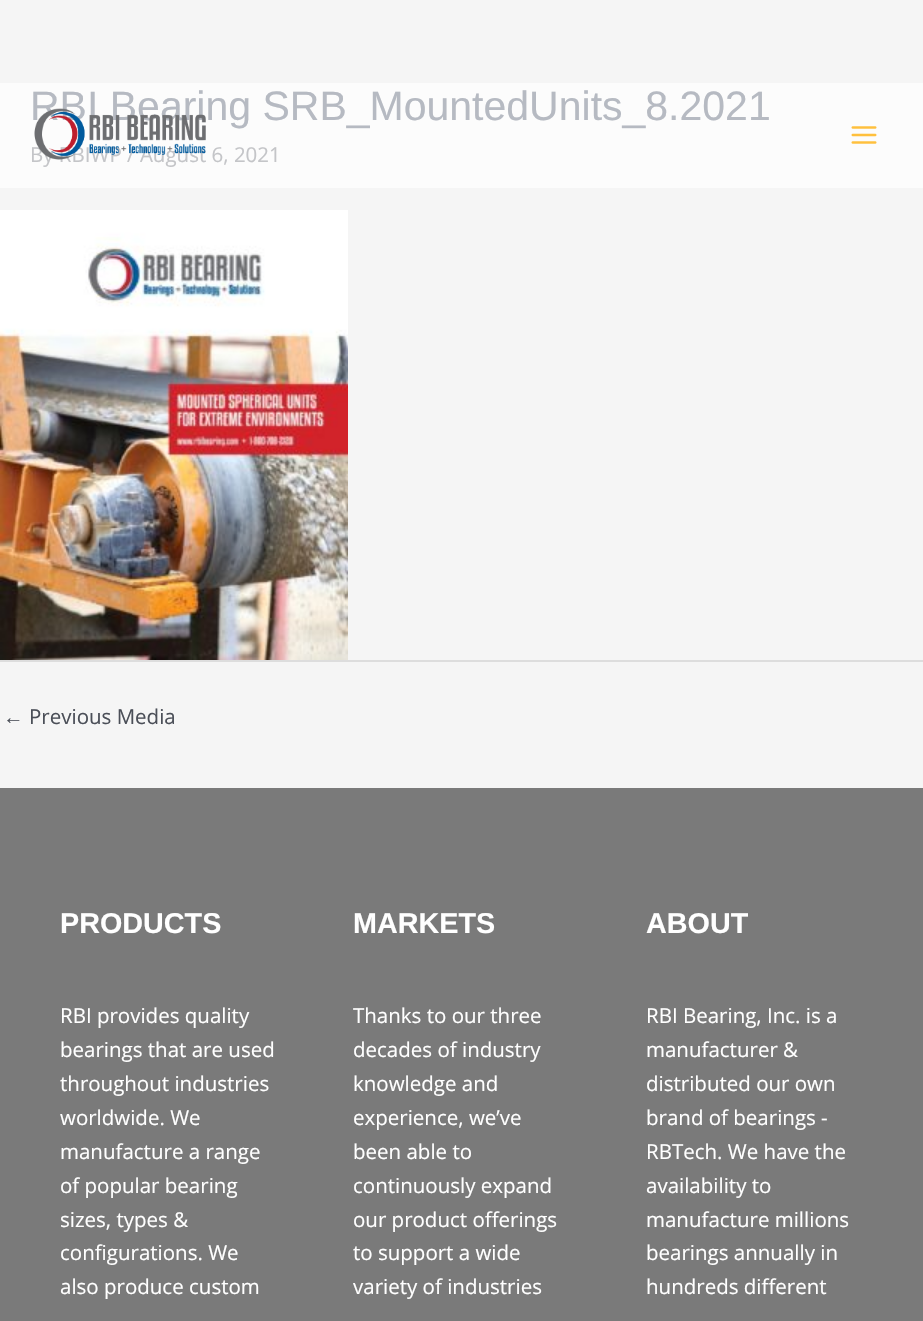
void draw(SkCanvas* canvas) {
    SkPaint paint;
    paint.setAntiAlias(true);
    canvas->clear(0xFFF5F5F5);
    paint.setColor(0xFFFCFCFC);
    canvas->drawRect(SkRect::MakeXYWH(0, 83, 923, 105), paint);
    SkFont font1(fontMgr->matchFamilyStyle("Liberation Sans", SkFontStyle::Normal()), 41);
    font1.setSubpixel(true);
    paint.setColor(0xFFB6BAC2);
    canvas->drawString("RBI Bearing SRB_MountedUnits_8.2021", 30, 120, font1, paint);
    SkFont font2(fontMgr->matchFamilyStyle("Open Sans", SkFontStyle::Normal()), 20.5f);
    font2.setSubpixel(true);
    paint.setColor(0xFFC4C5C8);
    canvas->drawString("By RBIWP / August 6, 2021", 30, 162, font2, paint);
    canvas->drawImageRect(SkImages::DeferredFromEncodedData(SkData::MakeFromFileName("img1.png")), SkRect::MakeXYWH(0, 210, 348, 450), SkSamplingOptions());
    paint.setColor(0xFFDDDDDD);
    canvas->drawRect(SkRect::MakeXYWH(0, 660, 923, 2), paint);
    SkFont font3(fontMgr->matchFamilyStyle("Liberation Sans", SkFontStyle::Normal()), 20.5f);
    font3.setSubpixel(true);
    paint.setColor(0xFF4B4F58);
    canvas->drawString("←", 3, 724, font3, paint);
    canvas->drawString("Previous Media", 29, 724, font2, paint);
    canvas->drawImageRect(SkImages::DeferredFromEncodedData(SkData::MakeFromFileName("img2.png")), SkRect::MakeXYWH(34, 108, 172, 52), SkSamplingOptions());
    canvas->drawImageRect(SkImages::DeferredFromEncodedData(SkData::MakeFromFileName("img3.png")), SkRect::MakeXYWH(851, 126, 26, 18), SkSamplingOptions());
    paint.setColor(0xFF7A7A7A);
    canvas->drawRect(SkRect::MakeXYWH(0, 788, 923, 533), paint);
    SkFont font4(fontMgr->matchFamilyStyle("Liberation Sans", SkFontStyle::Bold()), 28.75f);
    font4.setSubpixel(true);
    paint.setColor(0xFFFFFFFF);
    canvas->drawString("PRODUCTS", 60, 933, font4, paint);
    canvas->drawString("RBI provides quality", 60, 1023, font2, paint);
    canvas->drawString("bearings that are used", 60, 1057, font2, paint);
    canvas->drawString("throughout industries", 60, 1091, font2, paint);
    canvas->drawString("worldwide. We", 60, 1125, font2, paint);
    canvas->drawString("manufacture a range", 60, 1159, font2, paint);
    canvas->drawString("of popular bearing", 60, 1193, font2, paint);
    canvas->drawString("sizes, types &", 60, 1227, font2, paint);
    canvas->drawString("configurations. We", 60, 1260, font2, paint);
    canvas->drawString("also produce custom", 60, 1294, font2, paint);
    canvas->drawString("MARKETS", 353, 933, font4, paint);
    canvas->drawString("Thanks to our three", 353, 1023, font2, paint);
    canvas->drawString("decades of industry", 353, 1057, font2, paint);
    canvas->drawString("knowledge and", 353, 1091, font2, paint);
    canvas->drawString("experience, we’ve", 353, 1125, font2, paint);
    canvas->drawString("been able to", 353, 1159, font2, paint);
    canvas->drawString("continuously expand", 353, 1193, font2, paint);
    canvas->drawString("our product offerings", 353, 1227, font2, paint);
    canvas->drawString("to support a wide", 353, 1260, font2, paint);
    canvas->drawString("variety of industries", 353, 1294, font2, paint);
    canvas->drawString("ABOUT", 646, 933, font4, paint);
    canvas->drawString("RBI Bearing, Inc. is a", 646, 1023, font2, paint);
    canvas->drawString("manufacturer &", 646, 1057, font2, paint);
    canvas->drawString("distributed our own", 646, 1091, font2, paint);
    canvas->drawString("brand of bearings -", 646, 1125, font2, paint);
    canvas->drawString("RBTech. We have the", 646, 1159, font2, paint);
    canvas->drawString("availability to", 646, 1193, font2, paint);
    canvas->drawString("manufacture millions", 646, 1227, font2, paint);
    canvas->drawString("bearings annually in", 646, 1260, font2, paint);
    canvas->drawString("hundreds different", 646, 1294, font2, paint);
}
